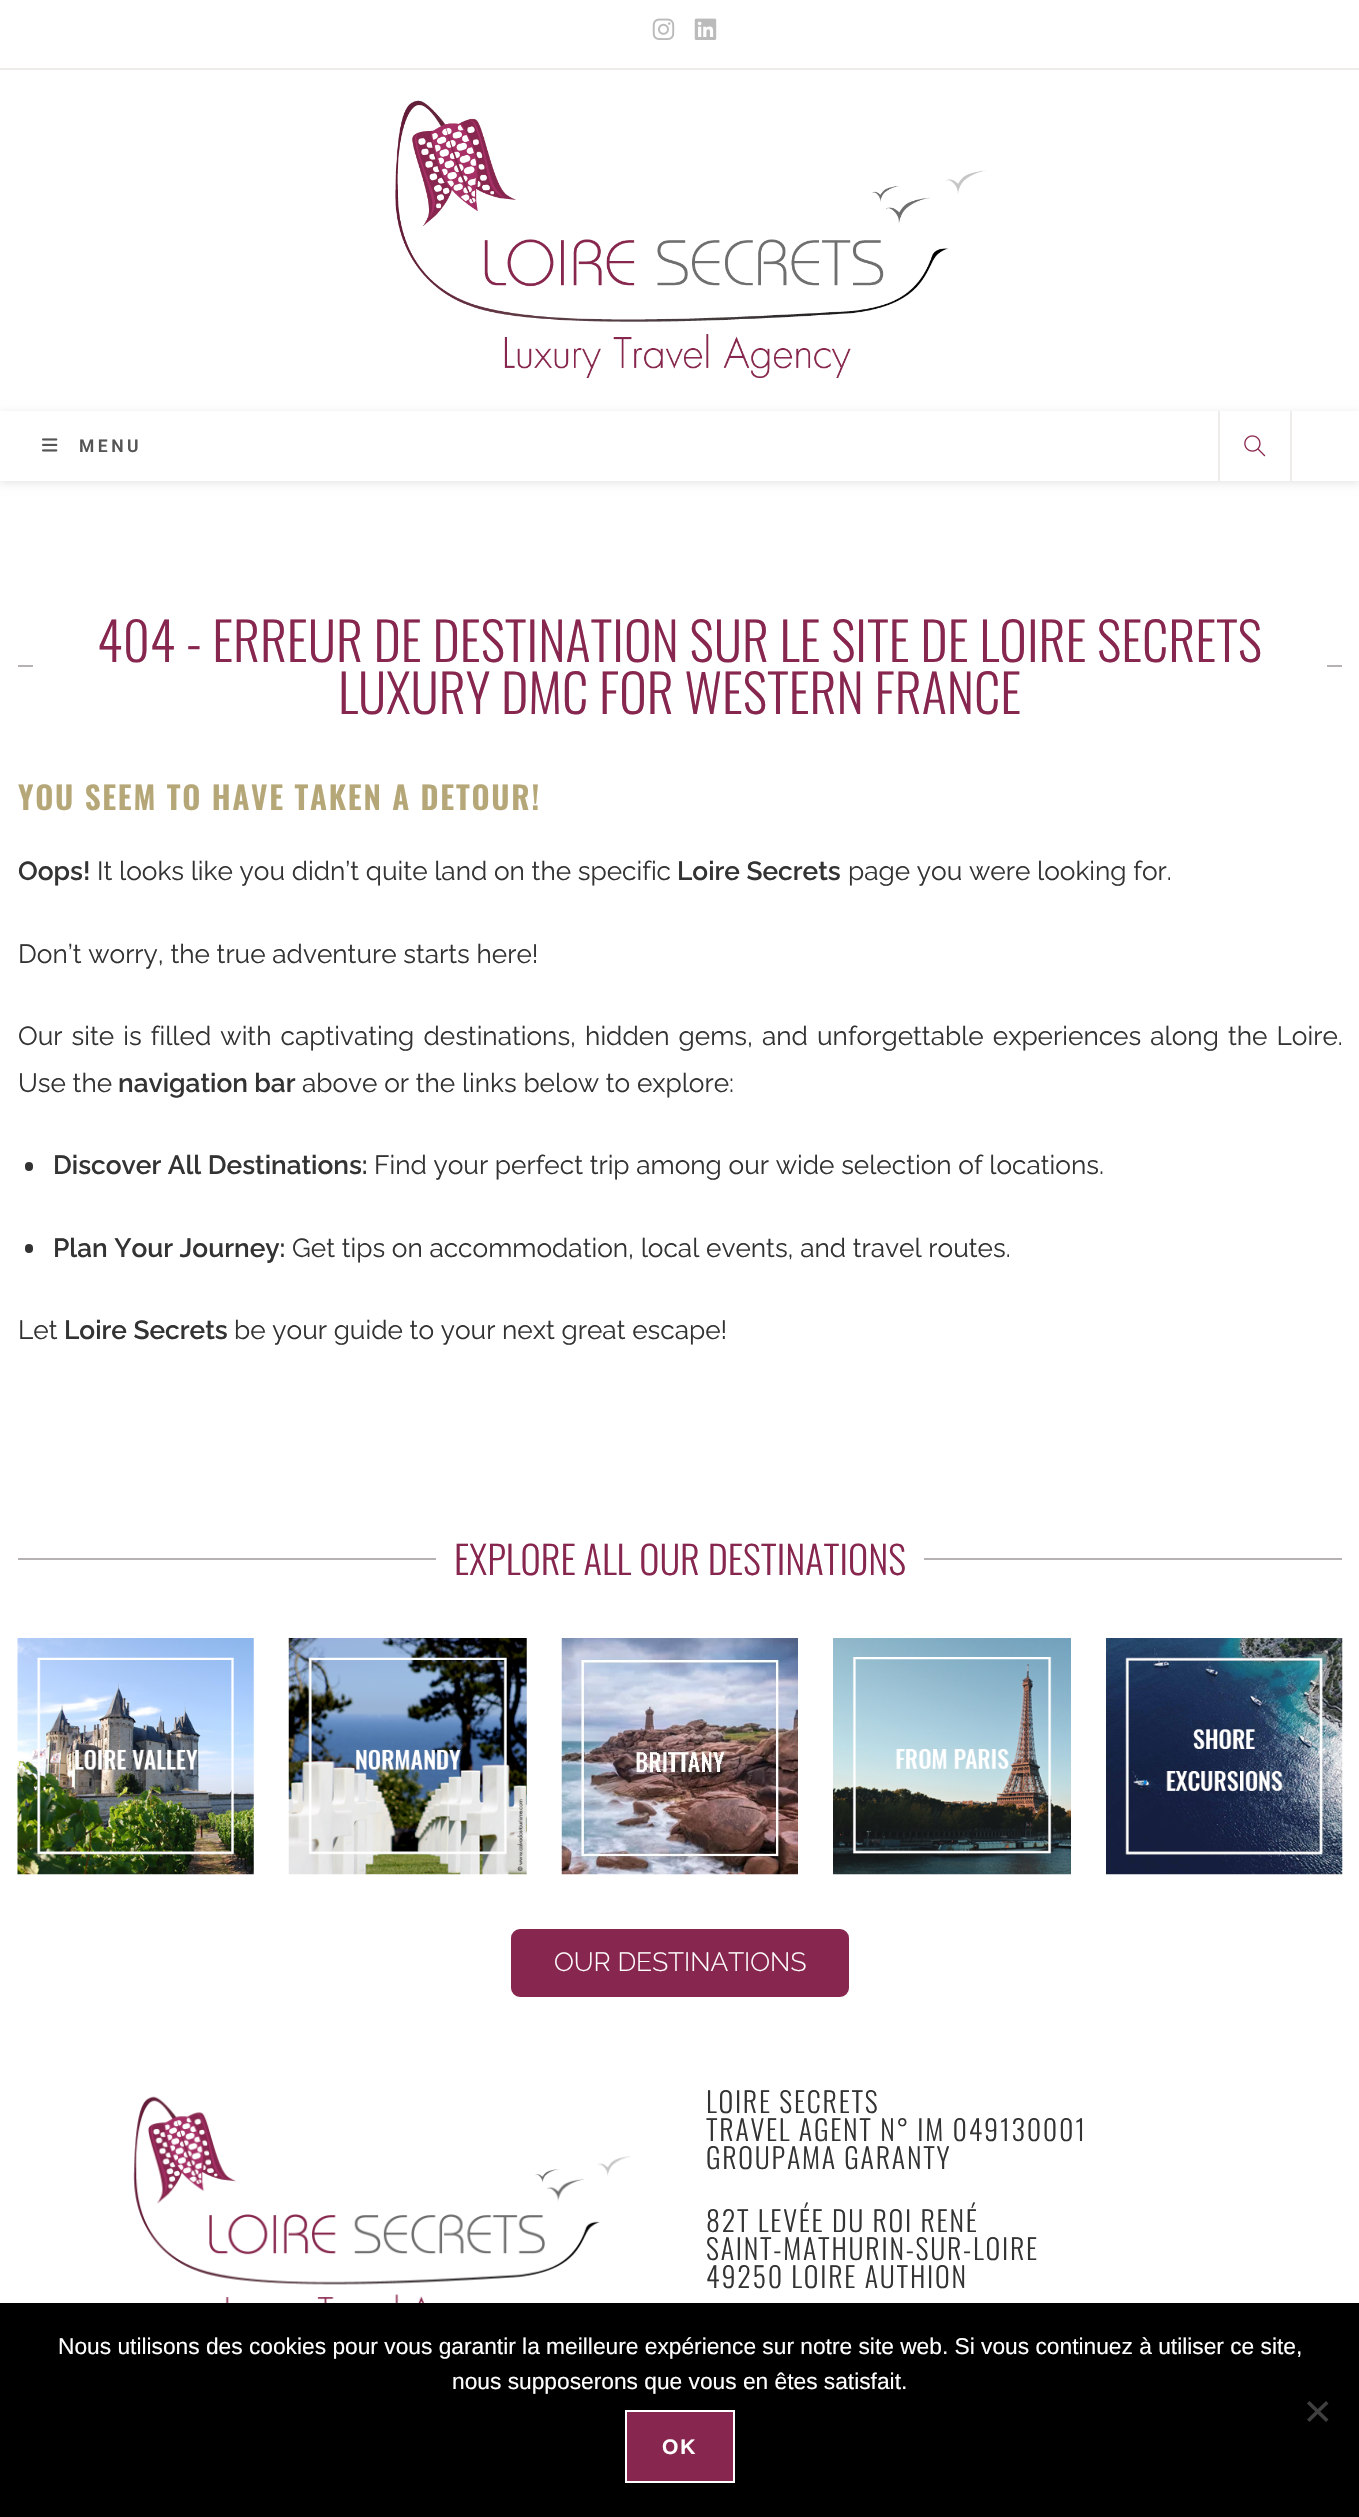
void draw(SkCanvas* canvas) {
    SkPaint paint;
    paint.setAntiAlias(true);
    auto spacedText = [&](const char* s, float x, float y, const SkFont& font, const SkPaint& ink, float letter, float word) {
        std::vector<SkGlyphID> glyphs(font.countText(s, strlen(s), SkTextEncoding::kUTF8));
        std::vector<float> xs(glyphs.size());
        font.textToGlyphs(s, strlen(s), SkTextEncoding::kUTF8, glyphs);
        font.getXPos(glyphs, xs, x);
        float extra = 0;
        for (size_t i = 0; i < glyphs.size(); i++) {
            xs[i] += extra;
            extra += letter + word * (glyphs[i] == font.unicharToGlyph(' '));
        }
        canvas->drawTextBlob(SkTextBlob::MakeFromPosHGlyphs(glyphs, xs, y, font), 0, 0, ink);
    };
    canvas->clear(0xFFFFFFFF);
    paint.setColor(0xFFEEECE9);
    canvas->drawRect(SkRect::MakeXYWH(0, 68, 1359, 2), paint);
    canvas->drawImageRect(SkImages::DeferredFromEncodedData(SkData::MakeFromFileName("img1.png")), SkRect::MakeXYWH(652, 18, 23, 22), SkSamplingOptions());
    canvas->drawImageRect(SkImages::DeferredFromEncodedData(SkData::MakeFromFileName("img2.png")), SkRect::MakeXYWH(694, 18, 23, 22), SkSamplingOptions());
    canvas->drawImageRect(SkImages::DeferredFromEncodedData(SkData::MakeFromFileName("img3.png")), SkRect::MakeXYWH(395, 100, 591, 278), SkSamplingOptions());
    paint.setColor(0x1A000000);
    paint.setMaskFilter(SkMaskFilter::MakeBlur(kNormal_SkBlurStyle, 4.5f));
    canvas->drawRect(SkRect::MakeXYWH(0, 413, 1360, 70), paint);
    paint.setMaskFilter(nullptr);
    paint.setColor(0xFFFFFFFF);
    canvas->drawRect(SkRect::MakeXYWH(0, 411, 1359, 70), paint);
    canvas->drawImageRect(SkImages::DeferredFromEncodedData(SkData::MakeFromFileName("img4.png")), SkRect::MakeXYWH(42, 438, 16, 14), SkSamplingOptions());
    SkFont font1(fontMgr->matchFamilyStyle("Roboto", SkFontStyle(600, SkFontStyle::kNormal_Width, SkFontStyle::kUpright_Slant)), 17.5f);
    font1.setSubpixel(true);
    paint.setColor(0xFF555555);
    spacedText("MENU", 79, 452, font1, paint, 3.5f, 0);
    paint.setColor(0xFFEEECE9);
    canvas->drawRect(SkRect::MakeXYWH(1290, 411, 2, 70), paint);
    canvas->drawRect(SkRect::MakeXYWH(1218, 411, 2, 70), paint);
    canvas->drawImageRect(SkImages::DeferredFromEncodedData(SkData::MakeFromFileName("img5.png")), SkRect::MakeXYWH(1244, 435, 22, 22), SkSamplingOptions());
    paint.setColor(0xFFB6B2B3);
    canvas->drawRect(SkRect::MakeXYWH(18, 665, 15, 2), paint);
    SkFont font2(fontMgr->matchFamilyStyle("Oswald", SkFontStyle(300, SkFontStyle::kNormal_Width, SkFontStyle::kUpright_Slant)), 52.5f);
    font2.setSubpixel(true);
    paint.setColor(0xFF87264E);
    canvas->drawString("404 - ERREUR DE DESTINATION SUR LE SITE DE LOIRE SECRETS", 97, 662, font2, paint);
    canvas->drawString("LUXURY DMC FOR WESTERN FRANCE", 338, 714, font2, paint);
    paint.setColor(0xFFB6B2B3);
    canvas->drawRect(SkRect::MakeXYWH(1327, 665, 15, 2), paint);
    SkFont font3(fontMgr->matchFamilyStyle("Oswald", SkFontStyle(600, SkFontStyle::kNormal_Width, SkFontStyle::kUpright_Slant)), 31.5f);
    font3.setSubpixel(true);
    paint.setColor(0xFFB5A778);
    spacedText("YOU SEEM TO HAVE TAKEN A DETOUR!", 18, 810, font3, paint, 1.75f, 0);
    SkFont font4(fontMgr->matchFamilyStyle("Raleway", SkFontStyle(600, SkFontStyle::kNormal_Width, SkFontStyle::kUpright_Slant)), 26.25f);
    font4.setSubpixel(true);
    paint.setColor(0xFF333333);
    canvas->drawString("Oops!", 18, 880, font4, paint);
    SkFont font5(fontMgr->matchFamilyStyle("Raleway", SkFontStyle::Normal()), 26.25f);
    font5.setSubpixel(true);
    canvas->drawString("It looks like you didn’t quite land on the specific", 97, 880, font5, paint);
    canvas->drawString("Loire Secrets", 677, 880, font4, paint);
    canvas->drawString("page you were looking for.", 848, 880, font5, paint);
    canvas->drawString("Don’t worry, the true adventure starts here!", 18, 963, font5, paint);
    spacedText("Our site is filled with captivating destinations, hidden gems, and unforgettable experiences along the Loire.", 18, 1045, font5, paint, 0, 2.4f);
    canvas->drawString("Use the", 18, 1092, font5, paint);
    canvas->drawString("navigation bar", 118, 1092, font4, paint);
    canvas->drawString("above or the links below to explore:", 302, 1092, font5, paint);
    canvas->drawRoundRect(SkRect::MakeXYWH(25, 1162, 8, 9), 4, 4, paint);
    canvas->drawString("Discover All Destinations:", 53, 1174, font4, paint);
    canvas->drawString("Find your perfect trip among our wide selection of locations.", 374, 1174, font5, paint);
    canvas->drawRoundRect(SkRect::MakeXYWH(25, 1244, 8, 9), 4, 4, paint);
    canvas->drawString("Plan Your Journey:", 53, 1257, font4, paint);
    canvas->drawString("Get tips on accommodation, local events, and travel routes.", 292, 1257, font5, paint);
    canvas->drawString("Let", 18, 1339, font5, paint);
    canvas->drawString("Loire Secrets", 64, 1339, font4, paint);
    canvas->drawString("be your guide to your next great escape!", 234, 1339, font5, paint);
    paint.setColor(0xFFB6B2B3);
    canvas->drawRect(SkRect::MakeXYWH(18, 1558, 418, 2), paint);
    SkFont font6(fontMgr->matchFamilyStyle("Oswald", SkFontStyle(300, SkFontStyle::kNormal_Width, SkFontStyle::kUpright_Slant)), 38.5f);
    font6.setSubpixel(true);
    paint.setColor(0xFF87264E);
    canvas->drawString("EXPLORE ALL OUR DESTINATIONS", 454, 1575, font6, paint);
    paint.setColor(0xFFB6B2B3);
    canvas->drawRect(SkRect::MakeXYWH(924, 1558, 418, 2), paint);
    canvas->drawImageRect(SkImages::DeferredFromEncodedData(SkData::MakeFromFileName("img6.png")), SkRect::MakeXYWH(17, 1638, 237, 237), SkSamplingOptions());
    canvas->drawImageRect(SkImages::DeferredFromEncodedData(SkData::MakeFromFileName("img7.png")), SkRect::MakeXYWH(288, 1638, 239, 237), SkSamplingOptions());
    canvas->drawImageRect(SkImages::DeferredFromEncodedData(SkData::MakeFromFileName("img8.png")), SkRect::MakeXYWH(561, 1638, 237, 237), SkSamplingOptions());
    canvas->drawImageRect(SkImages::DeferredFromEncodedData(SkData::MakeFromFileName("img9.png")), SkRect::MakeXYWH(833, 1638, 238, 237), SkSamplingOptions());
    canvas->drawImageRect(SkImages::DeferredFromEncodedData(SkData::MakeFromFileName("img10.png")), SkRect::MakeXYWH(1106, 1638, 237, 237), SkSamplingOptions());
    paint.setColor(0xFF87264E);
    canvas->drawRoundRect(SkRect::MakeXYWH(510, 1928, 340, 70), 10, 10, paint);
    paint.setStyle(SkPaint::kStroke_Style);
    paint.setStrokeWidth(2);
    paint.setColor(0xFFFFFFFF);
    canvas->drawRoundRect(SkRect::MakeXYWH(510, 1928, 340, 70), 10, 10, paint);
    SkFont font7(fontMgr->matchFamilyStyle("Raleway", SkFontStyle(300, SkFontStyle::kNormal_Width, SkFontStyle::kUpright_Slant)), 26.25f);
    font7.setSubpixel(true);
    paint.setStyle(SkPaint::kFill_Style);
    canvas->drawString("OUR DESTINATIONS", 554, 1971, font7, paint);
    canvas->drawImageRect(SkImages::DeferredFromEncodedData(SkData::MakeFromFileName("img11.png")), SkRect::MakeXYWH(133, 2096, 498, 207), SkSamplingOptions());
    SkFont font8(fontMgr->matchFamilyStyle("Oswald", SkFontStyle(300, SkFontStyle::kNormal_Width, SkFontStyle::kUpright_Slant)), 28);
    font8.setSubpixel(true);
    paint.setColor(0xFF333333);
    spacedText("LOIRE SECRETS", 706, 2113, font8, paint, 1.75f, 0);
    spacedText("TRAVEL AGENT N° IM 049130001", 706, 2141, font8, paint, 1.75f, 0);
    spacedText("GROUPAMA GARANTY", 706, 2169, font8, paint, 1.75f, 0);
    spacedText("82T LEVÉE DU ROI RENÉ", 706, 2232, font8, paint, 1.75f, 0);
    spacedText("SAINT-MATHURIN-SUR-LOIRE", 706, 2260, font8, paint, 1.75f, 0);
    spacedText("49250 LOIRE AUTHION", 706, 2288, font8, paint, 1.75f, 0);
    paint.setColor(0xFF000000);
    canvas->drawRect(SkRect::MakeXYWH(0, 2303, 1359, 214), paint);
    SkFont font9(fontMgr->matchFamilyStyle("Liberation Sans", SkFontStyle::Normal()), 22.75f);
    font9.setSubpixel(true);
    paint.setColor(0xFFFFFFFF);
    canvas->drawString("Nous utilisons des cookies pour vous garantir la meilleure expérience sur notre site web. Si vous continuez à utiliser ce site,", 58, 2354, font9, paint);
    canvas->drawString("nous supposerons que vous en êtes satisfait.", 452, 2389, font9, paint);
    paint.setColor(0xFF404040);
    canvas->drawPath(SkPathBuilder().moveTo(1326, 2401).lineTo(1328.5f, 2403.5f).lineTo(1309.5f, 2422).lineTo(1307, 2419.5f).close().detach(), paint);
    canvas->drawPath(SkPathBuilder().moveTo(1307, 2403.5f).lineTo(1309.5f, 2401).lineTo(1328.5f, 2419.5f).lineTo(1326, 2422).close().detach(), paint);
    paint.setColor(0xFF87264E);
    canvas->drawRect(SkRect::MakeXYWH(626, 2411, 108, 71), paint);
    paint.setStyle(SkPaint::kStroke_Style);
    paint.setColor(0xFFFFFFFF);
    canvas->drawRect(SkRect::MakeXYWH(626, 2411, 108, 71), paint);
    SkFont font10(fontMgr->matchFamilyStyle("Liberation Sans", SkFontStyle::Bold()), 21);
    font10.setSubpixel(true);
    paint.setStyle(SkPaint::kFill_Style);
    spacedText("OK", 662, 2454, font10, paint, 2, 0);
}
